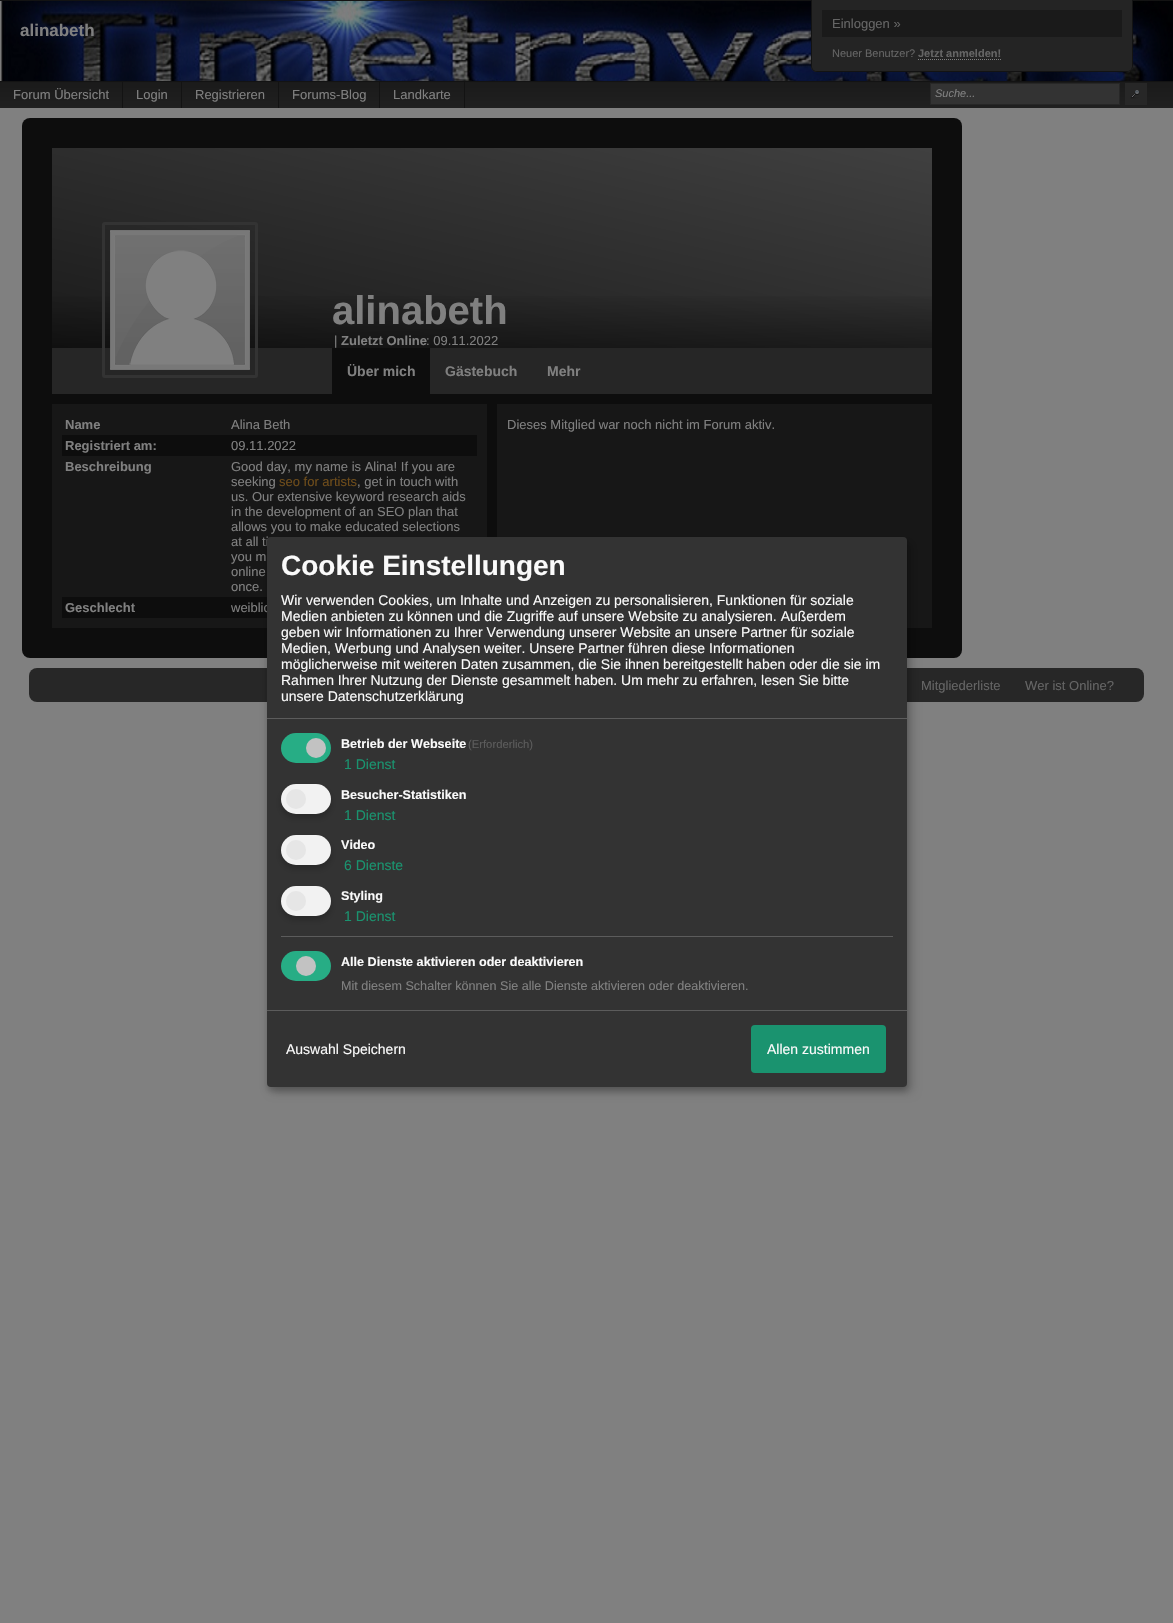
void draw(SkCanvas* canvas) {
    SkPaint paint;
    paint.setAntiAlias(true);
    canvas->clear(0xFF808080);
    paint.setColor(0xFF131313);
    canvas->drawRect(SkRect::MakeXYWH(0, 0, 1173, 1), paint);
    canvas->drawImageRect(SkImages::DeferredFromEncodedData(SkData::MakeFromFileName("img1.png")), SkRect::MakeXYWH(0, 1, 1173, 80), SkSamplingOptions());
    paint.setColor(0xFF242424);
    canvas->drawPath(SkPathBuilder().moveTo(811, 0).lineTo(1133, 0).lineTo(1133, 66).cubicTo(1133, 69.5f, 1130.5f, 72, 1127, 72).lineTo(817, 72).cubicTo(813.5f, 72, 811, 69.5f, 811, 66).close().detach(), paint);
    paint.setColor(0xFF131313);
    canvas->drawPath(SkPathBuilder(SkPathFillType::kEvenOdd).moveTo(811, 0).lineTo(1133, 0).lineTo(1133, 66).cubicTo(1133, 69, 1130, 72, 1127, 72).lineTo(817, 72).cubicTo(814, 72, 811, 69, 811, 66).close().moveTo(812, 0).lineTo(1132, 0).lineTo(1132, 66).cubicTo(1132, 69, 1130, 71, 1127, 71).lineTo(817, 71).cubicTo(814, 71, 812, 69, 812, 66).close().detach(), paint);
    paint.setColor(0xFF1A1A1A);
    canvas->drawRect(SkRect::MakeXYWH(822, 10, 300, 27), paint);
    SkFont font1(fontMgr->matchFamilyStyle("Liberation Sans", SkFontStyle::Normal()), 13);
    font1.setSubpixel(true);
    paint.setColor(0xFF656565);
    canvas->drawString("Einloggen »", 832, 28, font1, paint);
    SkFont font2(fontMgr->matchFamilyStyle("Liberation Sans", SkFontStyle::Normal()), 11);
    font2.setSubpixel(true);
    canvas->drawString("Neuer Benutzer?", 832, 57, font2, paint);
    SkFont font3(fontMgr->matchFamilyStyle("Liberation Sans", SkFontStyle::Bold()), 11);
    font3.setSubpixel(true);
    canvas->drawString("Jetzt anmelden!", 918, 57, font3, paint);
    paint.setStyle(SkPaint::kStroke_Style);
    paint.setStrokeWidth(1);
    paint.setColor(0xFF808080);
    paint.setPathEffect(SkDashPathEffect::Make({{1, 1}}, 0));
    canvas->drawPath(SkPathBuilder().moveTo(918, 59.5f).lineTo(1001, 59.5f).detach(), paint);
    paint.setPathEffect(nullptr);
    SkFont font4(fontMgr->matchFamilyStyle("Liberation Sans", SkFontStyle::Bold()), 17);
    font4.setSubpixel(true);
    paint.setStyle(SkPaint::kFill_Style);
    canvas->drawString("alinabeth", 20, 36, font4, paint);
    {
        const SkColor colors[] = {0xFF1A1A1A, 0xFF202020};
        const float stops[] = {0, 1};
        const SkPoint ends[] = {{0, 81}, {0, 108}};
        paint.setShader(SkGradientShader::MakeLinear(ends, colors, stops, 2, SkTileMode::kClamp));
        paint.setAlpha(255);
    }
    canvas->drawRect(SkRect::MakeXYWH(0, 82, 1173, 26), paint);
    paint.setShader(nullptr);
    paint.setColor(0xFF131313);
    canvas->drawRect(SkRect::MakeXYWH(0, 81, 1173, 1), paint);
    paint.setColor(0xFF808080);
    canvas->drawString("Forum Übersicht", 13, 99, font1, paint);
    paint.setColor(0xFF131313);
    canvas->drawRect(SkRect::MakeXYWH(122, 81, 1, 27), paint);
    paint.setColor(0xFF808080);
    canvas->drawString("Login", 136, 99, font1, paint);
    paint.setColor(0xFF131313);
    canvas->drawRect(SkRect::MakeXYWH(181, 81, 1, 27), paint);
    paint.setColor(0xFF808080);
    canvas->drawString("Registrieren", 195, 99, font1, paint);
    paint.setColor(0xFF131313);
    canvas->drawRect(SkRect::MakeXYWH(278, 81, 1, 27), paint);
    paint.setColor(0xFF808080);
    canvas->drawString("Forums-Blog", 292, 99, font1, paint);
    paint.setColor(0xFF131313);
    canvas->drawRect(SkRect::MakeXYWH(464, 81, 1, 27), paint);
    canvas->drawRect(SkRect::MakeXYWH(379, 81, 1, 27), paint);
    paint.setColor(0xFF808080);
    canvas->drawString("Landkarte", 393, 99, font1, paint);
    paint.setColor(0xFF333333);
    canvas->drawRect(SkRect::MakeXYWH(930.5f, 83.5f, 189, 21), paint);
    paint.setStyle(SkPaint::kStroke_Style);
    paint.setColor(0xFF272727);
    canvas->drawRect(SkRect::MakeXYWH(930.5f, 83.5f, 189, 21), paint);
    SkFont font5(fontMgr->matchFamilyStyle("Liberation Sans", SkFontStyle::Italic()), 11);
    font5.setSubpixel(true);
    paint.setStyle(SkPaint::kFill_Style);
    paint.setColor(0xFF808080);
    canvas->drawString("Suche...", 935, 97, font5, paint);
    paint.setColor(0xFF272727);
    canvas->drawRect(SkRect::MakeXYWH(1125, 83, 22, 22), paint);
    canvas->drawImageRect(SkImages::DeferredFromEncodedData(SkData::MakeFromFileName("img2.png")), SkRect::MakeXYWH(1130, 90, 10, 9), SkSamplingOptions());
    paint.setColor(0xFF0D0D0D);
    canvas->drawRoundRect(SkRect::MakeXYWH(22, 118, 940, 540), 8, 8, paint);
    paint.setColor(0xFF171717);
    canvas->drawRect(SkRect::MakeXYWH(52, 404, 880, 224), paint);
    {
        const SkColor colors[] = {0xFF1A1A1A, 0xFF404040};
        const float stops[] = {0, 1};
        const SkPoint ends[] = {{449, 438}, {535, 58}};
        paint.setShader(SkGradientShader::MakeLinear(ends, colors, stops, 2, SkTileMode::kClamp));
        paint.setAlpha(255);
    }
    canvas->drawRect(SkRect::MakeXYWH(52, 148, 880, 200), paint);
    {
        const SkColor colors[] = {0x66000000, 0x00000000};
        const float stops[] = {0, 1};
        const SkPoint ends[] = {{492, 348}, {492, 288}};
        paint.setShader(SkGradientShader::MakeLinear(ends, colors, stops, 2, SkTileMode::kClamp));
        paint.setAlpha(255);
    }
    canvas->drawRect(SkRect::MakeXYWH(52, 296, 880, 52), paint);
    SkFont font6(fontMgr->matchFamilyStyle("Liberation Sans", SkFontStyle::Bold()), 40);
    font6.setSubpixel(true);
    paint.setShader(nullptr);
    paint.setColor(0xFF808080);
    canvas->drawString("alinabeth", 332, 324, font6, paint);
    canvas->drawString("|", 334, 345, font1, paint);
    SkFont font7(fontMgr->matchFamilyStyle("Liberation Sans", SkFontStyle::Bold()), 13);
    font7.setSubpixel(true);
    canvas->drawString("Zuletzt Online", 341, 345, font7, paint);
    canvas->drawString(": 09.11.2022", 426, 345, font1, paint);
    paint.setColor(0xFF262626);
    canvas->drawRect(SkRect::MakeXYWH(52, 348, 880, 46), paint);
    paint.setStyle(SkPaint::kStroke_Style);
    paint.setStrokeWidth(3);
    paint.setColor(0xFF333333);
    canvas->drawRoundRect(SkRect::MakeXYWH(103.5f, 223.5f, 153, 153), 1.5f, 1.5f, paint);
    canvas->drawImageRect(SkImages::DeferredFromEncodedData(SkData::MakeFromFileName("img3.png")), SkRect::MakeXYWH(110, 230, 140, 140), SkSamplingOptions());
    paint.setStyle(SkPaint::kFill_Style);
    paint.setColor(0xFF0D0D0D);
    canvas->drawRect(SkRect::MakeXYWH(332, 348, 98, 46), paint);
    SkFont font8(fontMgr->matchFamilyStyle("Liberation Sans", SkFontStyle::Bold()), 14);
    font8.setSubpixel(true);
    paint.setColor(0xFF808080);
    canvas->drawString("Über mich", 347, 376, font8, paint);
    canvas->drawString("Gästebuch", 445, 376, font8, paint);
    canvas->drawString("Mehr", 547, 376, font8, paint);
    canvas->drawString("Name", 65, 429, font7, paint);
    canvas->drawString("Alina Beth", 231, 429, font1, paint);
    paint.setColor(0xFF0D0D0D);
    canvas->drawRect(SkRect::MakeXYWH(62, 435, 415, 21), paint);
    paint.setColor(0xFF808080);
    canvas->drawString("Registriert am:", 65, 450, font7, paint);
    canvas->drawString("09.11.2022", 231, 450, font1, paint);
    canvas->drawString("Beschreibung", 65, 471, font7, paint);
    canvas->drawString("Good day, my name is Alina! If you are", 231, 471, font1, paint);
    canvas->drawString("seeking", 231, 486, font1, paint);
    paint.setColor(0xFF6E4C1A);
    canvas->drawString("seo for artists", 279, 486, font1, paint);
    paint.setColor(0xFF808080);
    canvas->drawString(", get in touch with", 357, 486, font1, paint);
    canvas->drawString("us. Our extensive keyword research aids", 231, 501, font1, paint);
    canvas->drawString("in the development of an SEO plan that", 231, 516, font1, paint);
    canvas->drawString("allows you to make educated selections", 231, 531, font1, paint);
    canvas->drawString("at all ti", 231, 546, font1, paint);
    canvas->drawString("you m", 231, 561, font1, paint);
    canvas->drawString("online", 231, 576, font1, paint);
    canvas->drawString("once.", 231, 591, font1, paint);
    paint.setColor(0xFF0D0D0D);
    canvas->drawRect(SkRect::MakeXYWH(62, 597, 205, 21), paint);
    paint.setColor(0xFF808080);
    canvas->drawString("Geschlecht", 65, 612, font7, paint);
    canvas->drawString("weiblic", 231, 612, font1, paint);
    paint.setColor(0xFF0D0D0D);
    canvas->drawRect(SkRect::MakeXYWH(487, 404, 10, 133), paint);
    paint.setColor(0xFF808080);
    canvas->drawString("Dieses Mitglied war noch nicht im Forum aktiv.", 507, 429, font1, paint);
    paint.setColor(0xFF272727);
    canvas->drawRoundRect(SkRect::MakeXYWH(29, 668, 1115, 34), 8, 8, paint);
    paint.setColor(0x30000000);
    paint.setMaskFilter(SkMaskFilter::MakeBlur(kNormal_SkBlurStyle, 5));
    canvas->drawRoundRect(SkRect::MakeXYWH(272, 542, 640, 550), 4, 4, paint);
    paint.setMaskFilter(nullptr);
    paint.setColor(0x33000000);
    paint.setMaskFilter(SkMaskFilter::MakeBlur(kNormal_SkBlurStyle, 3));
    canvas->drawRoundRect(SkRect::MakeXYWH(267, 541, 640, 550), 4, 4, paint);
    paint.setMaskFilter(nullptr);
    paint.setColor(0xFF333333);
    canvas->drawRoundRect(SkRect::MakeXYWH(267, 537, 640, 550), 4, 4, paint);
    paint.setColor(0xFF5C5C5C);
    canvas->drawRect(SkRect::MakeXYWH(267, 718, 640, 1), paint);
    SkFont font9(fontMgr->matchFamilyStyle("Liberation Sans", SkFontStyle::Bold()), 28);
    font9.setSubpixel(true);
    paint.setColor(0xFFFAFAFA);
    canvas->drawString("Cookie Einstellungen", 281, 575, font9, paint);
    SkFont font10(fontMgr->matchFamilyStyle("Liberation Sans", SkFontStyle::Normal()), 14);
    font10.setSubpixel(true);
    canvas->drawString("Wir verwenden Cookies, um Inhalte und Anzeigen zu personalisieren, Funktionen für soziale", 281, 605, font10, paint);
    canvas->drawString("Medien anbieten zu können und die Zugriffe auf unsere Website zu analysieren. Außerdem", 281, 621, font10, paint);
    canvas->drawString("geben wir Informationen zu Ihrer Verwendung unserer Website an unsere Partner für soziale", 281, 637, font10, paint);
    canvas->drawString("Medien, Werbung und Analysen weiter. Unsere Partner führen diese Informationen", 281, 653, font10, paint);
    canvas->drawString("möglicherweise mit weiteren Daten zusammen, die Sie ihnen bereitgestellt haben oder die sie im", 281, 669, font10, paint);
    canvas->drawString("Rahmen Ihrer Nutzung der Dienste gesammelt haben. Um mehr zu erfahren, lesen Sie bitte", 281, 685, font10, paint);
    canvas->drawString("unsere Datenschutzerklärung", 281, 701, font10, paint);
    paint.setColor(0xFF27AD85);
    canvas->drawRoundRect(SkRect::MakeXYWH(281, 733, 50, 30), 15, 15, paint);
    paint.setColor(0xFFC2C2C2);
    canvas->drawCircle(316, 748, 10, paint);
    SkFont font11(fontMgr->matchFamilyStyle("Liberation Sans", SkFontStyle::Bold()), 12.6f);
    font11.setSubpixel(true);
    paint.setColor(0xFFFAFAFA);
    canvas->drawString("Betrieb der Webseite", 341, 748, font11, paint);
    SkFont font12(fontMgr->matchFamilyStyle("Liberation Sans", SkFontStyle::Normal()), 11.25f);
    font12.setSubpixel(true);
    paint.setColor(0xFF5C5C5C);
    canvas->drawString("(Erforderlich)", 468, 748, font12, paint);
    paint.setColor(0xFF1A936F);
    canvas->drawString("1 Dienst", 344, 769, font10, paint);
    paint.setColor(0x33000000);
    paint.setMaskFilter(SkMaskFilter::MakeBlur(kNormal_SkBlurStyle, 3));
    canvas->drawRoundRect(SkRect::MakeXYWH(281, 788, 50, 30), 15, 15, paint);
    paint.setMaskFilter(nullptr);
    paint.setColor(0xFFF2F2F2);
    canvas->drawRoundRect(SkRect::MakeXYWH(281, 784, 50, 30), 15, 15, paint);
    paint.setColor(0xFFE6E6E6);
    canvas->drawCircle(296, 799, 10, paint);
    paint.setColor(0xFFFAFAFA);
    canvas->drawString("Besucher-Statistiken", 341, 799, font11, paint);
    paint.setColor(0xFF1A936F);
    canvas->drawString("1 Dienst", 344, 820, font10, paint);
    paint.setColor(0x33000000);
    paint.setMaskFilter(SkMaskFilter::MakeBlur(kNormal_SkBlurStyle, 3));
    canvas->drawRoundRect(SkRect::MakeXYWH(281, 839, 50, 30), 15, 15, paint);
    paint.setMaskFilter(nullptr);
    paint.setColor(0xFFF2F2F2);
    canvas->drawRoundRect(SkRect::MakeXYWH(281, 835, 50, 30), 15, 15, paint);
    paint.setColor(0xFFE6E6E6);
    canvas->drawCircle(296, 850, 10, paint);
    paint.setColor(0xFFFAFAFA);
    canvas->drawString("Video", 341, 849, font11, paint);
    paint.setColor(0xFF1A936F);
    canvas->drawString("6 Dienste", 344, 870, font10, paint);
    paint.setColor(0x33000000);
    paint.setMaskFilter(SkMaskFilter::MakeBlur(kNormal_SkBlurStyle, 3));
    canvas->drawRoundRect(SkRect::MakeXYWH(281, 890, 50, 30), 15, 15, paint);
    paint.setMaskFilter(nullptr);
    paint.setColor(0xFFF2F2F2);
    canvas->drawRoundRect(SkRect::MakeXYWH(281, 886, 50, 30), 15, 15, paint);
    paint.setColor(0xFFE6E6E6);
    canvas->drawCircle(296, 901, 10, paint);
    paint.setColor(0xFFFAFAFA);
    canvas->drawString("Styling", 341, 900, font11, paint);
    paint.setColor(0xFF1A936F);
    canvas->drawString("1 Dienst", 344, 921, font10, paint);
    paint.setColor(0xFF5C5C5C);
    canvas->drawRect(SkRect::MakeXYWH(281, 936, 612, 1), paint);
    paint.setColor(0xFF27AD85);
    canvas->drawRoundRect(SkRect::MakeXYWH(281, 951, 50, 30), 15, 15, paint);
    paint.setColor(0xFFC2C2C2);
    canvas->drawCircle(306, 966, 10, paint);
    paint.setColor(0xFFFAFAFA);
    canvas->drawString("Alle Dienste aktivieren oder deaktivieren", 341, 966, font11, paint);
    SkFont font13(fontMgr->matchFamilyStyle("Liberation Sans", SkFontStyle::Normal()), 12.6f);
    font13.setSubpixel(true);
    paint.setColor(0xFF808080);
    canvas->drawString("Mit diesem Schalter können Sie alle Dienste aktivieren oder deaktivieren.", 341, 990, font13, paint);
    paint.setColor(0xFF5C5C5C);
    canvas->drawRect(SkRect::MakeXYWH(267, 1010, 640, 1), paint);
    paint.setColor(0xFFFAFAFA);
    canvas->drawString("Auswahl Speichern", 286, 1054, font10, paint);
    paint.setColor(0xFF1A936F);
    canvas->drawRoundRect(SkRect::MakeXYWH(751, 1025, 135, 48), 4, 4, paint);
    paint.setColor(0xFFFAFAFA);
    canvas->drawString("Allen zustimmen", 767, 1054, font10, paint);
    paint.setColor(0xFF656565);
    canvas->drawString("Mitgliederliste", 921, 690, font1, paint);
    canvas->drawString("Wer ist Online?", 1025, 690, font1, paint);
}
